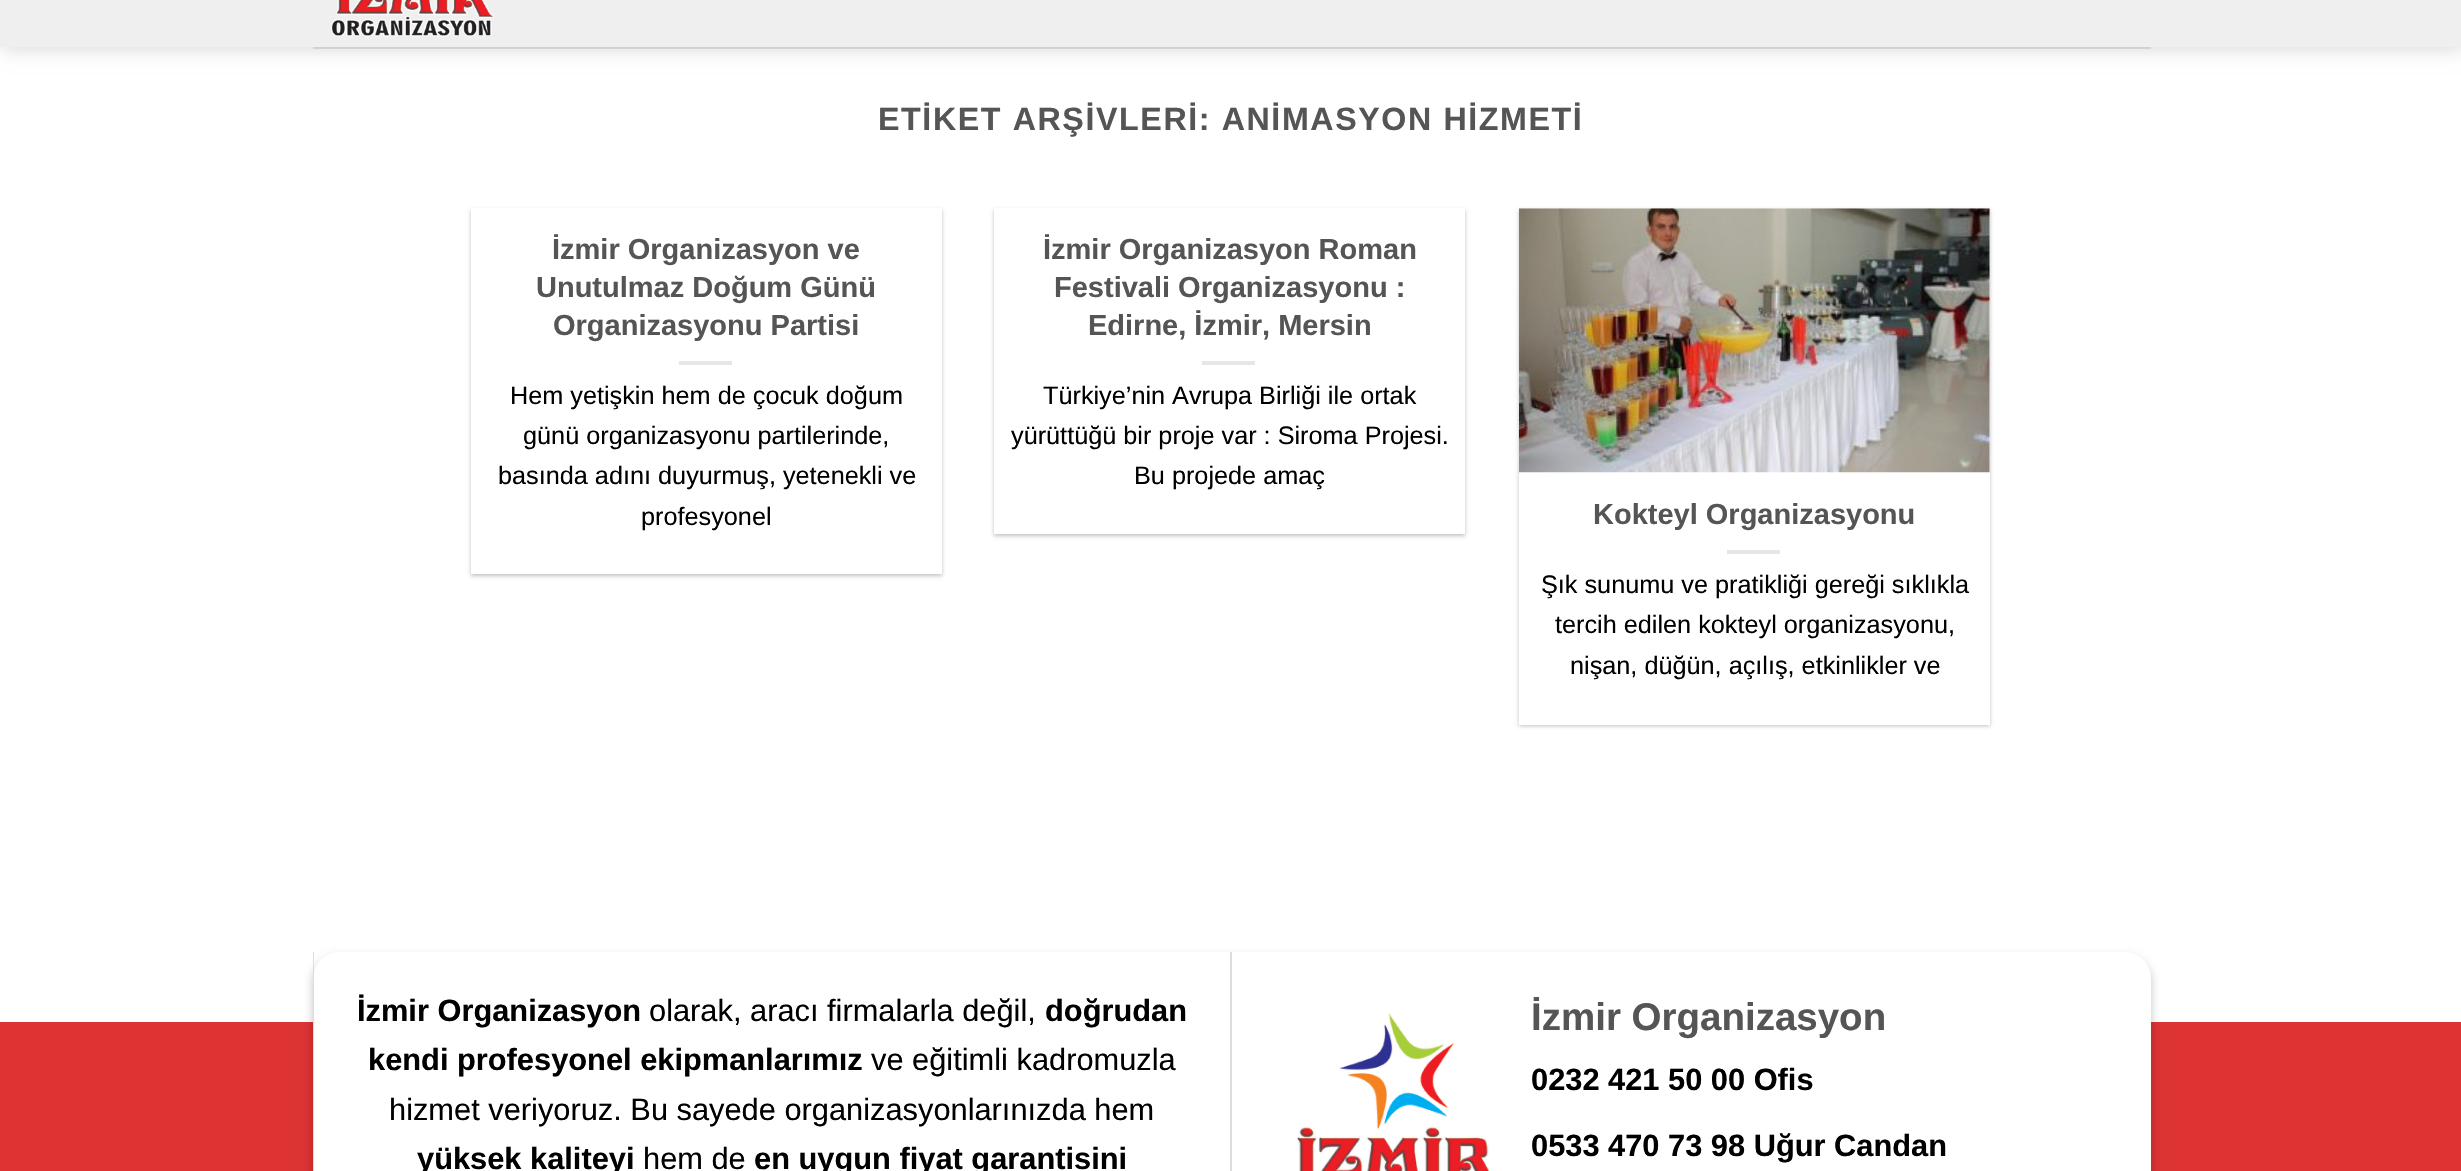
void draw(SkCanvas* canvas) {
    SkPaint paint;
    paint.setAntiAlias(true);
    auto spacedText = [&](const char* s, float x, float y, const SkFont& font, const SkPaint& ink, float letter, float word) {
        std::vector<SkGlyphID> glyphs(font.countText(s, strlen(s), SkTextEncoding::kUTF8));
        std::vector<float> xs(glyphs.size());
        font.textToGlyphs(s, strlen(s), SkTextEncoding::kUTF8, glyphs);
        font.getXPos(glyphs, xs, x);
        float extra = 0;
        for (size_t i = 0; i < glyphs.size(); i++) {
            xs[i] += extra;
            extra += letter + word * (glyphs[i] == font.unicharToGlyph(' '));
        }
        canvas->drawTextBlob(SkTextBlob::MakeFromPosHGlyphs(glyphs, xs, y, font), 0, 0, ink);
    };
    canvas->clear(0xFFFFFFFF);
    paint.setColor(0x26000000);
    paint.setMaskFilter(SkMaskFilter::MakeBlur(kNormal_SkBlurStyle, 9));
    canvas->drawRect(SkRect::MakeXYWH(2, -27, 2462, 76), paint);
    paint.setMaskFilter(nullptr);
    paint.setColor(0xFFEFEFEF);
    canvas->drawRect(SkRect::MakeXYWH(0, 0, 2461, 47), paint);
    canvas->drawImageRect(SkImages::DeferredFromEncodedData(SkData::MakeFromFileName("img1.png")), SkRect::MakeXYWH(330, 0, 164, 37), SkSamplingOptions());
    paint.setColor(0x1A000000);
    canvas->drawRect(SkRect::MakeXYWH(313, 47, 1838, 2), paint);
    SkFont font1(fontMgr->matchFamilyStyle("Liberation Sans", SkFontStyle::Bold()), 32.2f);
    font1.setSubpixel(true);
    paint.setColor(0xFF555555);
    spacedText("ETİKET ARŞİVLERİ: ANİMASYON HİZMETİ", 878, 130, font1, paint, 1.6f, 0);
    paint.setColor(0x3D000000);
    paint.setMaskFilter(SkMaskFilter::MakeBlur(kNormal_SkBlurStyle, 2));
    canvas->drawRect(SkRect::MakeXYWH(471, 210, 471, 366), paint);
    paint.setMaskFilter(nullptr);
    paint.setColor(0xFFFFFFFF);
    canvas->drawRect(SkRect::MakeXYWH(471, 208, 471, 366), paint);
    SkFont font2(fontMgr->matchFamilyStyle("Liberation Sans", SkFontStyle::Bold()), 29);
    font2.setSubpixel(true);
    paint.setColor(0xFF555555);
    canvas->drawString("İzmir Organizasyon ve", 552, 259, font2, paint);
    canvas->drawString("Unutulmaz Doğum Günü", 536, 297, font2, paint);
    canvas->drawString("Organizasyonu Partisi", 553, 335, font2, paint);
    paint.setColor(0xFFE6E6E6);
    canvas->drawRect(SkRect::MakeXYWH(679, 361, 53, 4), paint);
    SkFont font3(fontMgr->matchFamilyStyle("Liberation Sans", SkFontStyle::Normal()), 25.25f);
    font3.setSubpixel(true);
    paint.setColor(0xFF000000);
    canvas->drawString("Hem yetişkin hem de çocuk doğum", 510, 404, font3, paint);
    canvas->drawString("günü organizasyonu partilerinde,", 523, 444, font3, paint);
    canvas->drawString("basında adını duyurmuş, yetenekli ve", 498, 484, font3, paint);
    canvas->drawString("profesyonel", 641, 525, font3, paint);
    paint.setColor(0x3D000000);
    paint.setMaskFilter(SkMaskFilter::MakeBlur(kNormal_SkBlurStyle, 2));
    canvas->drawRect(SkRect::MakeXYWH(994, 210, 471, 326), paint);
    paint.setMaskFilter(nullptr);
    paint.setColor(0xFFFFFFFF);
    canvas->drawRect(SkRect::MakeXYWH(994, 208, 471, 326), paint);
    paint.setColor(0xFF555555);
    canvas->drawString("İzmir Organizasyon Roman", 1043, 259, font2, paint);
    canvas->drawString("Festivali Organizasyonu :", 1054, 297, font2, paint);
    canvas->drawString("Edirne, İzmir, Mersin", 1088, 335, font2, paint);
    paint.setColor(0xFFE6E6E6);
    canvas->drawRect(SkRect::MakeXYWH(1202, 361, 53, 4), paint);
    paint.setColor(0xFF000000);
    canvas->drawString("Türkiye’nin Avrupa Birliği ile ortak", 1043, 404, font3, paint);
    canvas->drawString("yürüttüğü bir proje var : Siroma Projesi.", 1011, 444, font3, paint);
    canvas->drawString("Bu projede amaç", 1134, 484, font3, paint);
    paint.setColor(0x3D000000);
    paint.setMaskFilter(SkMaskFilter::MakeBlur(kNormal_SkBlurStyle, 2));
    canvas->drawRect(SkRect::MakeXYWH(1519, 210, 471, 516), paint);
    paint.setMaskFilter(nullptr);
    paint.setColor(0xFFFFFFFF);
    canvas->drawRect(SkRect::MakeXYWH(1519, 208, 471, 517), paint);
    canvas->drawImageRect(SkImages::DeferredFromEncodedData(SkData::MakeFromFileName("img2.png")), SkRect::MakeXYWH(1519, 208, 471, 265), SkSamplingOptions());
    paint.setColor(0xFF555555);
    canvas->drawString("Kokteyl Organizasyonu", 1593, 524, font2, paint);
    paint.setColor(0xFFE6E6E6);
    canvas->drawRect(SkRect::MakeXYWH(1727, 550, 53, 4), paint);
    paint.setColor(0xFF000000);
    canvas->drawString("Şık sunumu ve pratikliği gereği sıklıkla", 1541, 593, font3, paint);
    canvas->drawString("tercih edilen kokteyl organizasyonu,", 1555, 633, font3, paint);
    canvas->drawString("nişan, düğün, açılış, etkinlikler ve", 1570, 674, font3, paint);
    paint.setColor(0xFFDD3333);
    canvas->drawRect(SkRect::MakeXYWH(0, 1022, 2461, 149), paint);
    paint.setColor(0x3B000000);
    paint.setMaskFilter(SkMaskFilter::MakeBlur(kNormal_SkBlurStyle, 5));
    canvas->drawRoundRect(SkRect::MakeXYWH(313, 957, 1838, 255), 26, 26, paint);
    paint.setMaskFilter(nullptr);
    paint.setColor(0xFFFFFFFF);
    canvas->drawRoundRect(SkRect::MakeXYWH(313, 952, 1838, 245), 26, 26, paint);
    paint.setColor(0xFFDDDDDD);
    canvas->drawRect(SkRect::MakeXYWH(313, 952, 1, 219), paint);
    SkFont font4(fontMgr->matchFamilyStyle("Liberation Sans", SkFontStyle::Bold()), 30.8f);
    font4.setSubpixel(true);
    paint.setColor(0xFF000000);
    canvas->drawString("İzmir Organizasyon", 357, 1021, font4, paint);
    SkFont font5(fontMgr->matchFamilyStyle("Liberation Sans", SkFontStyle::Normal()), 30.8f);
    font5.setSubpixel(true);
    canvas->drawString("olarak, aracı firmalarla değil,", 649, 1021, font5, paint);
    canvas->drawString("doğrudan", 1045, 1021, font4, paint);
    canvas->drawString("kendi profesyonel ekipmanlarımız", 368, 1070, font4, paint);
    canvas->drawString("ve eğitimli kadromuzla", 871, 1070, font5, paint);
    canvas->drawString("hizmet veriyoruz. Bu sayede organizasyonlarınızda hem", 389, 1120, font5, paint);
    canvas->drawString("yüksek kaliteyi", 417, 1169, font4, paint);
    canvas->drawString("hem de", 643, 1169, font5, paint);
    canvas->drawString("en uygun fiyat garantisini", 754, 1169, font4, paint);
    paint.setColor(0xFFDDDDDD);
    canvas->drawRect(SkRect::MakeXYWH(1230, 952, 2, 219), paint);
    canvas->drawImageRect(SkImages::DeferredFromEncodedData(SkData::MakeFromFileName("img3.png")), SkRect::MakeXYWH(1297, 1013, 193, 158), SkSamplingOptions());
    SkFont font6(fontMgr->matchFamilyStyle("Liberation Sans", SkFontStyle::Bold()), 38.5f);
    font6.setSubpixel(true);
    paint.setColor(0xFF555555);
    canvas->drawString("İzmir Organizasyon", 1531, 1030, font6, paint);
    paint.setColor(0xFF000000);
    canvas->drawString("0232 421 50 00 Ofis", 1531, 1090, font4, paint);
    canvas->drawString("0533 470 73 98 Uğur Candan", 1531, 1156, font4, paint);
}
